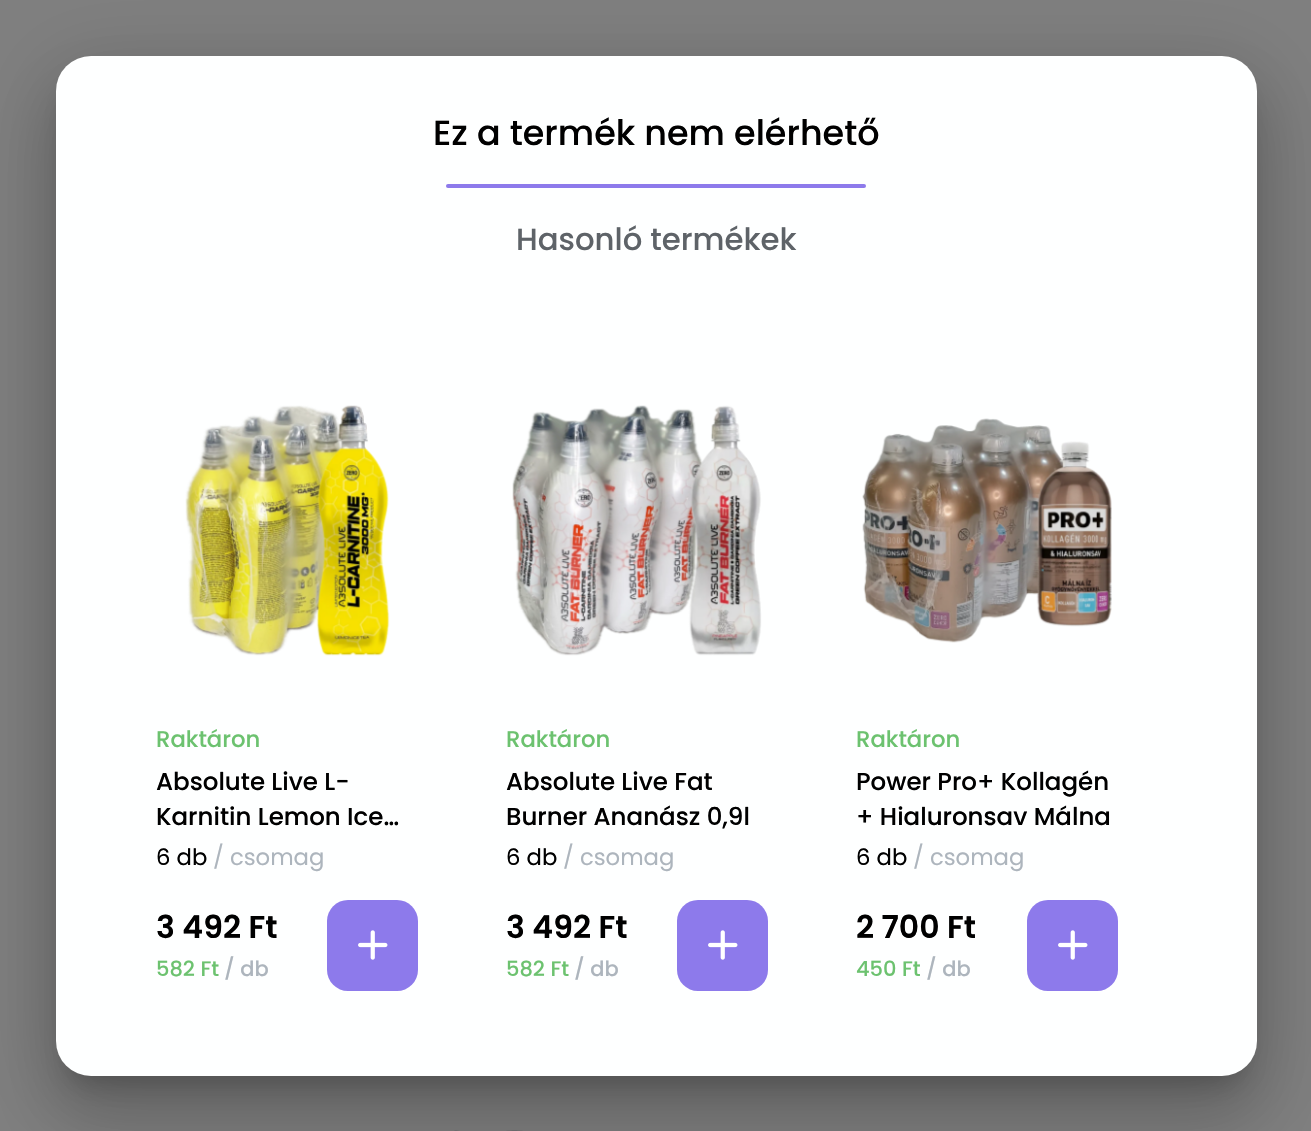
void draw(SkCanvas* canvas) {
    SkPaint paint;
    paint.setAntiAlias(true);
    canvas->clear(0xFF808080);
    canvas->drawImageRect(SkImages::DeferredFromEncodedData(SkData::MakeFromFileName("img5.png")), SkRect::MakeXYWH(454, 1130, 5, 1), SkSamplingOptions());
    canvas->drawImageRect(SkImages::DeferredFromEncodedData(SkData::MakeFromFileName("img6.png")), SkRect::MakeXYWH(506, 1130, 17, 1), SkSamplingOptions());
    paint.setColor(0x1F000000);
    paint.setMaskFilter(SkMaskFilter::MakeBlur(kNormal_SkBlurStyle, 40));
    canvas->drawRoundRect(SkRect::MakeXYWH(42, 58, 1229, 1048), 49, 49, paint);
    paint.setMaskFilter(nullptr);
    paint.setColor(0x24000000);
    paint.setMaskFilter(SkMaskFilter::MakeBlur(kNormal_SkBlurStyle, 33));
    canvas->drawRoundRect(SkRect::MakeXYWH(51, 93, 1211, 1031), 40, 40, paint);
    paint.setMaskFilter(nullptr);
    paint.setColor(0x33000000);
    paint.setMaskFilter(SkMaskFilter::MakeBlur(kNormal_SkBlurStyle, 13));
    canvas->drawRoundRect(SkRect::MakeXYWH(68, 88, 1176, 995), 23, 23, paint);
    paint.setMaskFilter(nullptr);
    paint.setColor(0xFFFEFFFF);
    canvas->drawRoundRect(SkRect::MakeXYWH(56, 56, 1201, 1020), 35, 35, paint);
    SkFont font1(fontMgr->matchFamilyStyle("Poppins", SkFontStyle(500, SkFontStyle::kNormal_Width, SkFontStyle::kUpright_Slant)), 35);
    font1.setSubpixel(true);
    paint.setColor(0xFF000000);
    canvas->drawString("Ez a termék nem elérhető", 433, 145, font1, paint);
    paint.setColor(0xFF8D7AEB);
    canvas->drawRoundRect(SkRect::MakeXYWH(446, 184, 420, 4), 2, 2, paint);
    SkFont font2(fontMgr->matchFamilyStyle("Poppins", SkFontStyle(500, SkFontStyle::kNormal_Width, SkFontStyle::kUpright_Slant)), 30.75f);
    font2.setSubpixel(true);
    paint.setColor(0xFF5E6368);
    canvas->drawString("Hasonló termékek", 516, 250, font2, paint);
    canvas->drawImageRect(SkImages::DeferredFromEncodedData(SkData::MakeFromFileName("img1.png")), SkRect::MakeXYWH(185, 405, 205, 251), SkSamplingOptions());
    SkFont font3(fontMgr->matchFamilyStyle("Poppins", SkFontStyle(500, SkFontStyle::kNormal_Width, SkFontStyle::kUpright_Slant)), 22.75f);
    font3.setSubpixel(true);
    paint.setColor(0xFF6CC26F);
    canvas->drawString("Raktáron", 156, 747, font3, paint);
    SkFont font4(fontMgr->matchFamilyStyle("Poppins", SkFontStyle(500, SkFontStyle::kNormal_Width, SkFontStyle::kUpright_Slant)), 24.5f);
    font4.setSubpixel(true);
    paint.setColor(0xFF000000);
    canvas->drawString("Absolute Live L-", 156, 790, font4, paint);
    canvas->drawString("Karnitin Lemon Ice…", 156, 825, font4, paint);
    SkFont font5(fontMgr->matchFamilyStyle("Poppins", SkFontStyle::Normal()), 22.75f);
    font5.setSubpixel(true);
    canvas->drawString("6 db", 156, 865, font5, paint);
    paint.setColor(0xFFADB5BD);
    canvas->drawString("/ csomag", 213, 865, font5, paint);
    SkFont font6(fontMgr->matchFamilyStyle("Poppins", SkFontStyle(600, SkFontStyle::kNormal_Width, SkFontStyle::kUpright_Slant)), 31.5f);
    font6.setSubpixel(true);
    paint.setColor(0xFF000000);
    canvas->drawString("3 492 Ft", 156, 938, font6, paint);
    SkFont font7(fontMgr->matchFamilyStyle("Poppins", SkFontStyle(500, SkFontStyle::kNormal_Width, SkFontStyle::kUpright_Slant)), 21);
    font7.setSubpixel(true);
    paint.setColor(0xFF6CC26F);
    canvas->drawString("582 Ft", 156, 976, font7, paint);
    paint.setColor(0xFFADB5BD);
    canvas->drawString("/ db", 224, 976, font7, paint);
    paint.setColor(0xFF8D7AEB);
    canvas->drawRoundRect(SkRect::MakeXYWH(327, 900, 91, 91), 21, 21, paint);
    canvas->drawImageRect(SkImages::DeferredFromEncodedData(SkData::MakeFromFileName("img2.png")), SkRect::MakeXYWH(358, 930, 30, 30), SkSamplingOptions());
    canvas->drawImageRect(SkImages::DeferredFromEncodedData(SkData::MakeFromFileName("img3.png")), SkRect::MakeXYWH(512, 405, 250, 251), SkSamplingOptions());
    paint.setColor(0xFF6CC26F);
    canvas->drawString("Raktáron", 506, 747, font3, paint);
    paint.setColor(0xFF000000);
    canvas->drawString("Absolute Live Fat", 506, 790, font4, paint);
    canvas->drawString("Burner Ananász 0,9l", 506, 825, font4, paint);
    canvas->drawString("6 db", 506, 865, font5, paint);
    paint.setColor(0xFFADB5BD);
    canvas->drawString("/ csomag", 563, 865, font5, paint);
    paint.setColor(0xFF000000);
    canvas->drawString("3 492 Ft", 506, 938, font6, paint);
    paint.setColor(0xFF6CC26F);
    canvas->drawString("582 Ft", 506, 976, font7, paint);
    paint.setColor(0xFFADB5BD);
    canvas->drawString("/ db", 574, 976, font7, paint);
    paint.setColor(0xFF8D7AEB);
    canvas->drawRoundRect(SkRect::MakeXYWH(677, 900, 91, 91), 21, 21, paint);
    canvas->drawImageRect(SkImages::DeferredFromEncodedData(SkData::MakeFromFileName("img2.png")), SkRect::MakeXYWH(708, 930, 30, 30), SkSamplingOptions());
    canvas->drawImageRect(SkImages::DeferredFromEncodedData(SkData::MakeFromFileName("img4.png")), SkRect::MakeXYWH(862, 418, 250, 225), SkSamplingOptions());
    paint.setColor(0xFF6CC26F);
    canvas->drawString("Raktáron", 856, 747, font3, paint);
    paint.setColor(0xFF000000);
    canvas->drawString("Power Pro+ Kollagén", 856, 790, font4, paint);
    canvas->drawString("+ Hialuronsav Málna", 856, 825, font4, paint);
    canvas->drawString("6 db", 856, 865, font5, paint);
    paint.setColor(0xFFADB5BD);
    canvas->drawString("/ csomag", 913, 865, font5, paint);
    paint.setColor(0xFF000000);
    canvas->drawString("2 700 Ft", 856, 938, font6, paint);
    paint.setColor(0xFF6CC26F);
    canvas->drawString("450 Ft", 856, 976, font7, paint);
    paint.setColor(0xFFADB5BD);
    canvas->drawString("/ db", 926, 976, font7, paint);
    paint.setColor(0xFF8D7AEB);
    canvas->drawRoundRect(SkRect::MakeXYWH(1027, 900, 91, 91), 21, 21, paint);
    canvas->drawImageRect(SkImages::DeferredFromEncodedData(SkData::MakeFromFileName("img2.png")), SkRect::MakeXYWH(1058, 930, 30, 30), SkSamplingOptions());
}
